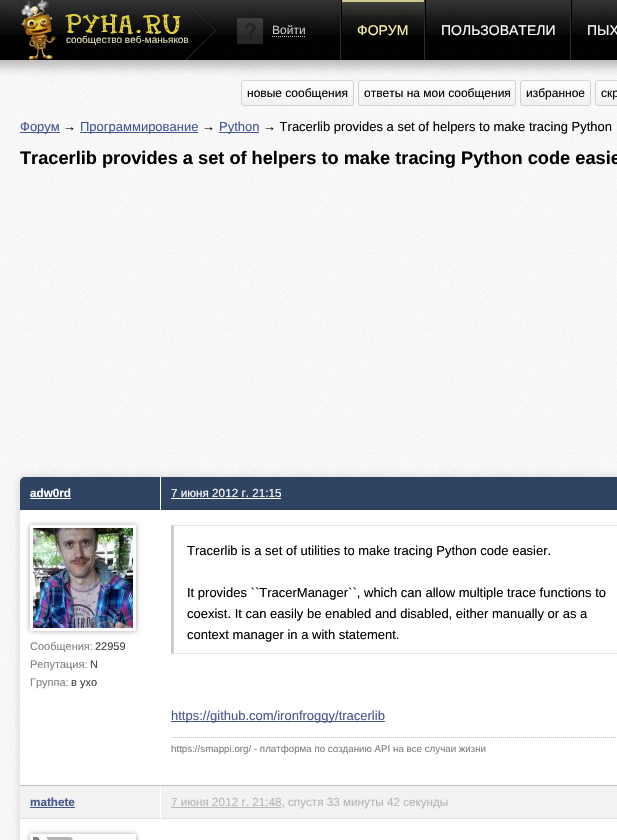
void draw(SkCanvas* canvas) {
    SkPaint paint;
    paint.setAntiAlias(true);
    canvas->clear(0xFFFFFFFF);
    canvas->drawImageRect(SkImages::DeferredFromEncodedData(SkData::MakeFromFileName("img1.png")), SkRect::MakeXYWH(0, 60, 617, 780), SkSamplingOptions());
    paint.setColor(0x40000000);
    paint.setMaskFilter(SkMaskFilter::MakeBlur(kNormal_SkBlurStyle, 5));
    canvas->drawRect(SkRect::MakeXYWH(-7, -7, 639, 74), paint);
    paint.setMaskFilter(nullptr);
    canvas->drawImageRect(SkImages::DeferredFromEncodedData(SkData::MakeFromFileName("img2.png")), SkRect::MakeXYWH(0, 0, 617, 60), SkSamplingOptions());
    canvas->drawImageRect(SkImages::DeferredFromEncodedData(SkData::MakeFromFileName("img3.png")), SkRect::MakeXYWH(0, 0, 617, 35), SkSamplingOptions());
    paint.setColor(0xFF2E2E2E);
    canvas->drawRect(SkRect::MakeXYWH(340, 0, 1, 60), paint);
    canvas->drawImageRect(SkImages::DeferredFromEncodedData(SkData::MakeFromFileName("img4.png")), SkRect::MakeXYWH(237, 18, 26, 26), SkSamplingOptions());
    SkFont font1(fontMgr->matchFamilyStyle("Liberation Sans", SkFontStyle::Normal()), 12);
    font1.setSubpixel(true);
    paint.setColor(0xFFC3C3C3);
    canvas->drawString("Войти", 272, 34, font1, paint);
    canvas->drawImageRect(SkImages::DeferredFromEncodedData(SkData::MakeFromFileName("img5.png")), SkRect::MakeXYWH(272, 36, 33, 1), SkSamplingOptions());
    canvas->drawImageRect(SkImages::DeferredFromEncodedData(SkData::MakeFromFileName("img6.png")), SkRect::MakeXYWH(342, 0, 82, 15), SkSamplingOptions());
    paint.setColor(0xFF2E2E2E);
    canvas->drawRect(SkRect::MakeXYWH(424, 0, 1, 60), paint);
    paint.setColor(0xFF000000);
    canvas->drawRect(SkRect::MakeXYWH(341, 0, 1, 60), paint);
    SkFont font2(fontMgr->matchFamilyStyle("Liberation Sans", SkFontStyle::Normal()), 14);
    font2.setSubpixel(true);
    paint.setColor(0xFFFDF4A9);
    canvas->drawString("ФОРУМ", 357, 35, font2, paint);
    paint.setColor(0xFF2E2E2E);
    canvas->drawRect(SkRect::MakeXYWH(570, 0, 1, 60), paint);
    paint.setColor(0xFF000000);
    canvas->drawRect(SkRect::MakeXYWH(425, 0, 1, 60), paint);
    paint.setColor(0xFFFFFFFF);
    canvas->drawString("ПОЛЬЗОВАТЕЛИ", 441, 35, font2, paint);
    paint.setColor(0xFF000000);
    canvas->drawRect(SkRect::MakeXYWH(571, 0, 1, 60), paint);
    paint.setColor(0xFFFFFFFF);
    canvas->drawString("ПЫХ", 587, 35, font2, paint);
    canvas->drawImageRect(SkImages::DeferredFromEncodedData(SkData::MakeFromFileName("img7.png")), SkRect::MakeXYWH(20, 0, 196, 60), SkSamplingOptions());
    SkFont font3(fontMgr->matchFamilyStyle("Liberation Sans", SkFontStyle::Normal()), 10);
    font3.setSubpixel(true);
    paint.setColor(0xFFE5DFBD);
    canvas->drawString("сообщество веб-маньяков", 66, 43, font3, paint);
    canvas->save();
    canvas->clipPath(SkPathBuilder().moveTo(244, 80).lineTo(351, 80).cubicTo(352.5f, 80, 354, 81.5f, 354, 83).lineTo(354, 103).cubicTo(354, 104.5f, 352.5f, 106, 351, 106).lineTo(244, 106).cubicTo(242.5f, 106, 241, 104.5f, 241, 103).lineTo(241, 83).cubicTo(241, 81.5f, 242.5f, 80, 244, 80).close().detach(), true);
    {
        const SkColor colors[] = {0xFFF0F0F0, 0xFFFEFEFE};
        const float stops[] = {0, 1};
        const SkPoint ends[] = {{242, 105}, {242, 81}};
        paint.setShader(SkGradientShader::MakeLinear(ends, colors, stops, 2, SkTileMode::kClamp));
        paint.setAlpha(255);
    }
    canvas->drawRect(SkRect::MakeXYWH(241, 81, 113, 24), paint);
    canvas->restore();
    paint.setStyle(SkPaint::kStroke_Style);
    paint.setStrokeWidth(1);
    paint.setShader(nullptr);
    paint.setColor(0xFFD2D2D2);
    canvas->drawRoundRect(SkRect::MakeXYWH(241.5f, 80.5f, 112, 25), 2.5f, 2.5f, paint);
    paint.setStyle(SkPaint::kFill_Style);
    paint.setColor(0xFF000000);
    canvas->drawString("новые сообщения", 247, 97, font1, paint);
    canvas->save();
    canvas->clipPath(SkPathBuilder().moveTo(361, 80).lineTo(513, 80).cubicTo(514.5f, 80, 516, 81.5f, 516, 83).lineTo(516, 103).cubicTo(516, 104.5f, 514.5f, 106, 513, 106).lineTo(361, 106).cubicTo(359.5f, 106, 358, 104.5f, 358, 103).lineTo(358, 83).cubicTo(358, 81.5f, 359.5f, 80, 361, 80).close().detach(), true);
    {
        const SkColor colors[] = {0xFFF0F0F0, 0xFFFEFEFE};
        const float stops[] = {0, 1};
        const SkPoint ends[] = {{359, 105}, {359, 81}};
        paint.setShader(SkGradientShader::MakeLinear(ends, colors, stops, 2, SkTileMode::kClamp));
        paint.setAlpha(255);
    }
    canvas->drawRect(SkRect::MakeXYWH(358, 81, 158, 24), paint);
    canvas->restore();
    paint.setStyle(SkPaint::kStroke_Style);
    paint.setShader(nullptr);
    paint.setColor(0xFFD2D2D2);
    canvas->drawRoundRect(SkRect::MakeXYWH(358.5f, 80.5f, 157, 25), 2.5f, 2.5f, paint);
    paint.setStyle(SkPaint::kFill_Style);
    paint.setColor(0xFF000000);
    canvas->drawString("ответы на мои сообщения", 364, 97, font1, paint);
    canvas->save();
    canvas->clipPath(SkPathBuilder().moveTo(523, 80).lineTo(588, 80).cubicTo(589.5f, 80, 591, 81.5f, 591, 83).lineTo(591, 103).cubicTo(591, 104.5f, 589.5f, 106, 588, 106).lineTo(523, 106).cubicTo(521.5f, 106, 520, 104.5f, 520, 103).lineTo(520, 83).cubicTo(520, 81.5f, 521.5f, 80, 523, 80).close().detach(), true);
    {
        const SkColor colors[] = {0xFFF0F0F0, 0xFFFEFEFE};
        const float stops[] = {0, 1};
        const SkPoint ends[] = {{521, 105}, {521, 81}};
        paint.setShader(SkGradientShader::MakeLinear(ends, colors, stops, 2, SkTileMode::kClamp));
        paint.setAlpha(255);
    }
    canvas->drawRect(SkRect::MakeXYWH(520, 81, 71, 24), paint);
    canvas->restore();
    paint.setStyle(SkPaint::kStroke_Style);
    paint.setShader(nullptr);
    paint.setColor(0xFFD2D2D2);
    canvas->drawRoundRect(SkRect::MakeXYWH(520.5f, 80.5f, 70, 25), 2.5f, 2.5f, paint);
    paint.setStyle(SkPaint::kFill_Style);
    paint.setColor(0xFF000000);
    canvas->drawString("избранное", 526, 97, font1, paint);
    canvas->save();
    canvas->clipPath(SkPathBuilder().moveTo(598, 80).lineTo(683, 80).cubicTo(684.5f, 80, 686, 81.5f, 686, 83).lineTo(686, 103).cubicTo(686, 104.5f, 684.5f, 106, 683, 106).lineTo(598, 106).cubicTo(596.5f, 106, 595, 104.5f, 595, 103).lineTo(595, 83).cubicTo(595, 81.5f, 596.5f, 80, 598, 80).close().detach(), true);
    {
        const SkColor colors[] = {0xFFF0F0F0, 0xFFFEFEFE};
        const float stops[] = {0, 1};
        const SkPoint ends[] = {{596, 105}, {596, 81}};
        paint.setShader(SkGradientShader::MakeLinear(ends, colors, stops, 2, SkTileMode::kClamp));
        paint.setAlpha(255);
    }
    canvas->drawRect(SkRect::MakeXYWH(595, 81, 22, 24), paint);
    canvas->restore();
    paint.setStyle(SkPaint::kStroke_Style);
    paint.setShader(nullptr);
    paint.setColor(0xFFD2D2D2);
    canvas->drawRoundRect(SkRect::MakeXYWH(595.5f, 80.5f, 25, 25), 2.5f, 2.5f, paint);
    paint.setStyle(SkPaint::kFill_Style);
    paint.setColor(0xFF000000);
    canvas->drawString("скр", 601, 97, font1, paint);
    paint.setColor(0xFF465692);
    canvas->drawRect(SkRect::MakeXYWH(20, 132, 40, 1), paint);
    SkFont font4(fontMgr->matchFamilyStyle("Liberation Sans", SkFontStyle::Normal()), 13);
    font4.setSubpixel(true);
    canvas->drawString("Форум", 20, 131, font4, paint);
    paint.setColor(0xFF000000);
    canvas->drawString("→", 63, 131, font4, paint);
    paint.setColor(0xFF465692);
    canvas->drawRect(SkRect::MakeXYWH(80, 132, 118, 1), paint);
    canvas->drawString("Программирование", 80, 131, font4, paint);
    paint.setColor(0xFF000000);
    canvas->drawString("→", 202, 131, font4, paint);
    paint.setColor(0xFF465692);
    canvas->drawRect(SkRect::MakeXYWH(219, 132, 40, 1), paint);
    canvas->drawString("Python", 219, 131, font4, paint);
    paint.setColor(0xFF000000);
    canvas->drawString("→ Tracerlib provides a set of helpers to make tracing Python", 263, 131, font4, paint);
    SkFont font5(fontMgr->matchFamilyStyle("Liberation Sans", SkFontStyle::Bold()), 18.2f);
    font5.setSubpixel(true);
    canvas->drawString("Tracerlib provides a set of helpers to make tracing Python code easie", 20, 164, font5, paint);
    paint.setColor(0x26000000);
    paint.setMaskFilter(SkMaskFilter::MakeBlur(kNormal_SkBlurStyle, 5));
    canvas->drawRoundRect(SkRect::MakeXYWH(20, 477, 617, 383), 5, 5, paint);
    paint.setMaskFilter(nullptr);
    paint.setColor(0xFFFFFFFF);
    canvas->drawRoundRect(SkRect::MakeXYWH(20, 477, 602, 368), 5, 5, paint);
    paint.setColor(0xFF2F4363);
    canvas->drawPath(SkPathBuilder().moveTo(25, 477).lineTo(160, 477).lineTo(160, 510).lineTo(20, 510).lineTo(20, 482).cubicTo(20, 479, 22, 477, 25, 477).close().detach(), paint);
    paint.setColor(0xFF2C3E5C);
    canvas->drawRect(SkRect::MakeXYWH(20, 509, 140, 1), paint);
    SkFont font6(fontMgr->matchFamilyStyle("Liberation Sans", SkFontStyle::Bold()), 11.7f);
    font6.setSubpixel(true);
    paint.setColor(0xFFFFFFFF);
    canvas->drawString("adw0rd", 30, 497, font6, paint);
    canvas->drawRect(SkRect::MakeXYWH(30, 498, 41, 1), paint);
    canvas->save();
    canvas->clipPath(SkPathBuilder(SkPathFillType::kEvenOdd).moveTo(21, 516).lineTo(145, 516).lineTo(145, 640).lineTo(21, 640).close().moveTo(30, 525).lineTo(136, 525).lineTo(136, 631).lineTo(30, 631).close().detach(), true);
    paint.setColor(0x59000000);
    paint.setMaskFilter(SkMaskFilter::MakeBlur(kNormal_SkBlurStyle, 2.5f));
    canvas->drawRect(SkRect::MakeXYWH(30, 525, 106, 106), paint);
    paint.setMaskFilter(nullptr);
    canvas->restore();
    canvas->drawImageRect(SkImages::DeferredFromEncodedData(SkData::MakeFromFileName("img8.png")), SkRect::MakeXYWH(33, 528, 100, 100), SkSamplingOptions());
    SkFont font7(fontMgr->matchFamilyStyle("Liberation Sans", SkFontStyle::Normal()), 11);
    font7.setSubpixel(true);
    paint.setColor(0xFF808080);
    canvas->drawString("Сообщения:", 30, 650, font7, paint);
    paint.setColor(0xFF404040);
    canvas->drawString("22959", 95, 650, font7, paint);
    paint.setColor(0xFF808080);
    canvas->drawString("Репутация:", 30, 668, font7, paint);
    paint.setColor(0xFF404040);
    canvas->drawString("N", 90, 668, font7, paint);
    paint.setColor(0xFF808080);
    canvas->drawString("Группа:", 30, 686, font7, paint);
    paint.setColor(0xFF404040);
    canvas->drawString("в ухо", 71, 686, font7, paint);
    paint.setColor(0xFF2F4363);
    canvas->drawRect(SkRect::MakeXYWH(161, 477, 456, 32), paint);
    paint.setColor(0xFF2C3E5C);
    canvas->drawRect(SkRect::MakeXYWH(161, 509, 456, 1), paint);
    SkFont font8(fontMgr->matchFamilyStyle("Liberation Sans", SkFontStyle::Normal()), 11.7f);
    font8.setSubpixel(true);
    paint.setColor(0xFFFFFFFF);
    canvas->drawString("7 июня 2012 г. 21:15", 171, 497, font8, paint);
    canvas->drawRect(SkRect::MakeXYWH(171, 498, 110, 1), paint);
    paint.setColor(0xFFE6E6E6);
    canvas->drawPath(SkPathBuilder().moveTo(171, 525).lineTo(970, 525).lineTo(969, 526).lineTo(174, 526).close().detach(), paint);
    canvas->drawPath(SkPathBuilder().moveTo(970, 654).lineTo(171, 654).lineTo(174, 653).lineTo(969, 653).close().detach(), paint);
    paint.setColor(0x33000000);
    canvas->drawPath(SkPathBuilder().moveTo(171, 654).lineTo(171, 525).lineTo(174, 526).lineTo(174, 653).close().detach(), paint);
    paint.setColor(0xFF000000);
    canvas->drawString("Tracerlib is a set of utilities to make tracing Python code easier.", 187, 555, font4, paint);
    canvas->drawString("It provides ``TracerManager``, which can allow multiple trace functions to", 187, 597, font4, paint);
    canvas->drawString("coexist. It can easily be enabled and disabled, either manually or as a", 187, 618, font4, paint);
    canvas->drawString("context manager in a with statement.", 187, 639, font4, paint);
    paint.setColor(0xFF465692);
    canvas->drawRect(SkRect::MakeXYWH(171, 721, 214, 1), paint);
    canvas->drawString("https://github.com/ironfroggy/tracerlib", 171, 720, font4, paint);
    paint.setStyle(SkPaint::kStroke_Style);
    paint.setColor(0xFFBFBFBF);
    paint.setPathEffect(SkDashPathEffect::Make({{1, 1}}, 0));
    canvas->drawPath(SkPathBuilder().moveTo(171, 737.5f).lineTo(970, 737.5f).detach(), paint);
    paint.setPathEffect(nullptr);
    SkFont font9(fontMgr->matchFamilyStyle("Liberation Sans", SkFontStyle::Normal()), 9.75f);
    font9.setSubpixel(true);
    paint.setStyle(SkPaint::kFill_Style);
    paint.setColor(0xFF808080);
    canvas->drawString("https://smappi.org/ - платформа по созданию API на все случаи жизни", 171, 752, font9, paint);
    paint.setColor(0xFFBFBFBF);
    canvas->drawRect(SkRect::MakeXYWH(20, 785, 597, 1), paint);
    paint.setColor(0xFFF2F2F2);
    canvas->drawRect(SkRect::MakeXYWH(20, 786, 140, 32), paint);
    paint.setColor(0xFFE1E1E1);
    canvas->drawRect(SkRect::MakeXYWH(20, 818, 140, 1), paint);
    paint.setColor(0xFF465692);
    canvas->drawString("mathete", 30, 806, font6, paint);
    canvas->drawRect(SkRect::MakeXYWH(30, 807, 45, 1), paint);
    canvas->save();
    canvas->clipPath(SkPathBuilder(SkPathFillType::kEvenOdd).moveTo(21, 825).lineTo(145, 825).lineTo(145, 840).lineTo(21, 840).close().moveTo(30, 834).lineTo(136, 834).lineTo(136, 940).lineTo(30, 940).close().detach(), true);
    paint.setColor(0x59000000);
    paint.setMaskFilter(SkMaskFilter::MakeBlur(kNormal_SkBlurStyle, 2.5f));
    canvas->drawRect(SkRect::MakeXYWH(30, 834, 106, 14), paint);
    paint.setMaskFilter(nullptr);
    canvas->restore();
    canvas->drawImageRect(SkImages::DeferredFromEncodedData(SkData::MakeFromFileName("img9.png")), SkRect::MakeXYWH(33, 837, 41, 3), SkSamplingOptions());
    paint.setColor(0xFFF2F2F2);
    canvas->drawRect(SkRect::MakeXYWH(161, 786, 456, 32), paint);
    paint.setColor(0xFFE1E1E1);
    canvas->drawRect(SkRect::MakeXYWH(161, 818, 456, 1), paint);
    paint.setColor(0xFFB6B6B6);
    canvas->drawRect(SkRect::MakeXYWH(171, 807, 110, 1), paint);
    canvas->drawString("7 июня 2012 г. 21:48, спустя 33 минуты 42 секунды", 171, 806, font8, paint);
}
